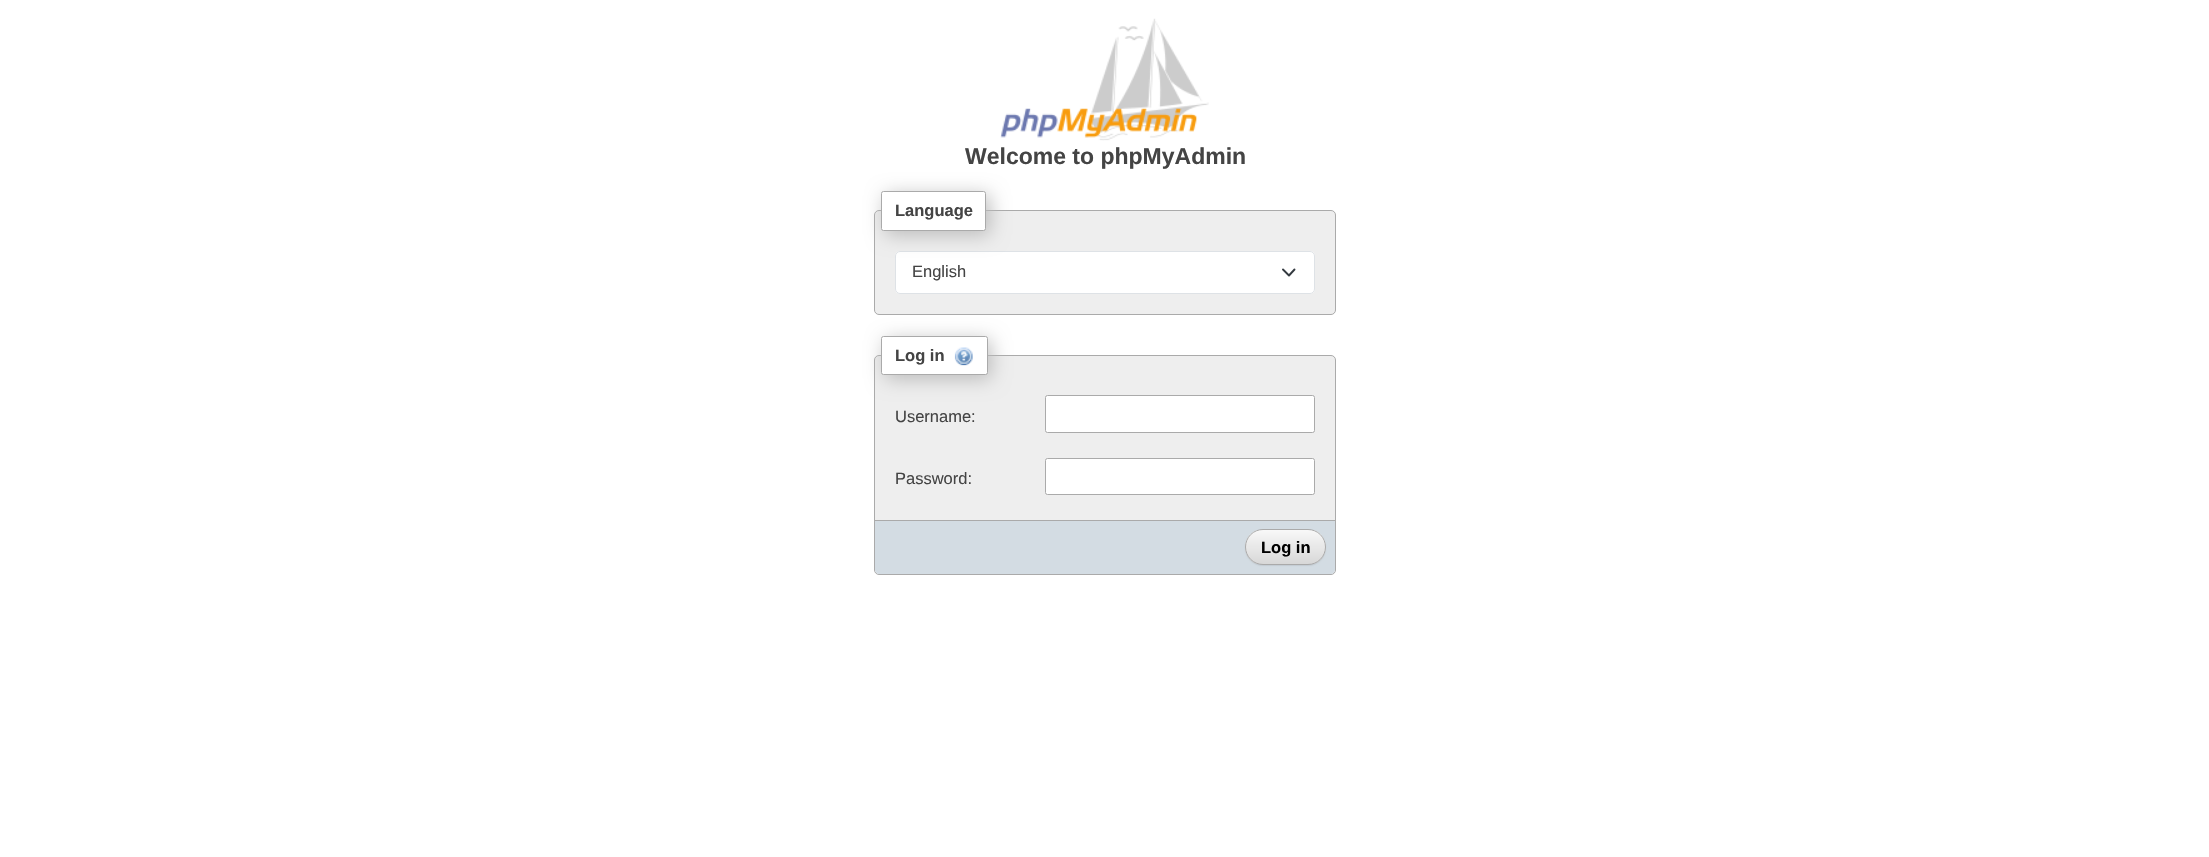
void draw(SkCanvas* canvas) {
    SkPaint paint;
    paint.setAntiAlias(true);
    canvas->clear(0xFFFFFFFF);
    canvas->drawImageRect(SkImages::DeferredFromEncodedData(SkData::MakeFromFileName("img1.png")), SkRect::MakeXYWH(1000, 18, 209, 123), SkSamplingOptions());
    SkFont font1(fontMgr->matchFamilyStyle("Liberation Sans", SkFontStyle::Bold()), 23);
    font1.setSubpixel(true);
    paint.setColor(0xFF444444);
    canvas->drawString("Welcome to phpMyAdmin", 965, 164, font1, paint);
    paint.setColor(0xFFEEEEEE);
    canvas->drawRoundRect(SkRect::MakeXYWH(874.5f, 210.5f, 461, 104), 4.5f, 4.5f, paint);
    paint.setStyle(SkPaint::kStroke_Style);
    paint.setStrokeWidth(1);
    paint.setColor(0xFFAAAAAA);
    canvas->drawRoundRect(SkRect::MakeXYWH(874.5f, 210.5f, 461, 104), 4.5f, 4.5f, paint);
    paint.setStyle(SkPaint::kFill_Style);
    paint.setColor(0xFFFFFFFF);
    canvas->drawRoundRect(SkRect::MakeXYWH(895, 251, 420, 43), 5, 5, paint);
    paint.setStyle(SkPaint::kStroke_Style);
    paint.setStrokeWidth(1.9f);
    paint.setStrokeCap(SkPaint::kRound_Cap);
    paint.setStrokeJoin(SkPaint::kRound_Join);
    paint.setColor(0xFF343A40);
    canvas->drawPath(SkPathBuilder().moveTo(1283, 269.5f).lineTo(1289, 275.5f).lineTo(1294.5f, 269.5f).detach(), paint);
    paint.setStrokeWidth(1);
    paint.setStrokeCap(SkPaint::kButt_Cap);
    paint.setStrokeJoin(SkPaint::kMiter_Join);
    paint.setColor(0xFFDEE2E6);
    canvas->drawRoundRect(SkRect::MakeXYWH(895.5f, 251.5f, 419, 42), 4.5f, 4.5f, paint);
    paint.setStyle(SkPaint::kFill_Style);
    paint.setColor(0xFFBBBBBB);
    paint.setMaskFilter(SkMaskFilter::MakeBlur(kNormal_SkBlurStyle, 9.5f));
    canvas->drawRoundRect(SkRect::MakeXYWH(885, 195, 105, 40), 2.5f, 2.5f, paint);
    paint.setMaskFilter(nullptr);
    paint.setColor(0xFFFFFFFF);
    canvas->drawRoundRect(SkRect::MakeXYWH(881.5f, 191.5f, 104, 39), 2, 2, paint);
    paint.setStyle(SkPaint::kStroke_Style);
    paint.setColor(0xFFAAAAAA);
    canvas->drawRoundRect(SkRect::MakeXYWH(881.5f, 191.5f, 104, 39), 2, 2, paint);
    SkFont font2(fontMgr->matchFamilyStyle("Liberation Sans", SkFontStyle::Bold()), 16.5f);
    font2.setSubpixel(true);
    paint.setStyle(SkPaint::kFill_Style);
    paint.setColor(0xFF444444);
    canvas->drawString("Language", 895, 216, font2, paint);
    SkFont font3(fontMgr->matchFamilyStyle("Liberation Sans", SkFontStyle::Normal()), 16.5f);
    font3.setSubpixel(true);
    canvas->drawString("English", 912, 277, font3, paint);
    paint.setColor(0xFFEEEEEE);
    canvas->drawRoundRect(SkRect::MakeXYWH(874.5f, 355.5f, 461, 219), 4.5f, 4.5f, paint);
    paint.setStyle(SkPaint::kStroke_Style);
    paint.setColor(0xFFAAAAAA);
    canvas->drawRoundRect(SkRect::MakeXYWH(874.5f, 355.5f, 461, 219), 4.5f, 4.5f, paint);
    paint.setStyle(SkPaint::kFill_Style);
    paint.setColor(0xFFBBBBBB);
    paint.setMaskFilter(SkMaskFilter::MakeBlur(kNormal_SkBlurStyle, 9.5f));
    canvas->drawRoundRect(SkRect::MakeXYWH(885, 340, 106, 39), 2.5f, 2.5f, paint);
    paint.setMaskFilter(nullptr);
    paint.setColor(0xFFFFFFFF);
    canvas->drawRoundRect(SkRect::MakeXYWH(881.5f, 336.5f, 106, 38), 2, 2, paint);
    paint.setStyle(SkPaint::kStroke_Style);
    paint.setColor(0xFFAAAAAA);
    canvas->drawRoundRect(SkRect::MakeXYWH(881.5f, 336.5f, 106, 38), 2, 2, paint);
    paint.setStyle(SkPaint::kFill_Style);
    paint.setColor(0xFF444444);
    canvas->drawString("Log in", 895, 361, font2, paint);
    canvas->drawImageRect(SkImages::DeferredFromEncodedData(SkData::MakeFromFileName("img2.png")), SkRect::MakeXYWH(954, 347, 19, 19), SkSamplingOptions());
    canvas->drawString("Username:", 895, 422, font3, paint);
    paint.setColor(0xFFFFFFFF);
    canvas->drawRoundRect(SkRect::MakeXYWH(1045.5f, 395.5f, 269, 37), 2, 2, paint);
    paint.setStyle(SkPaint::kStroke_Style);
    paint.setColor(0xFFAAAAAA);
    canvas->drawRoundRect(SkRect::MakeXYWH(1045.5f, 395.5f, 269, 37), 2, 2, paint);
    paint.setStyle(SkPaint::kFill_Style);
    paint.setColor(0xFF444444);
    canvas->drawString("Password:", 895, 484, font3, paint);
    paint.setColor(0xFFFFFFFF);
    canvas->drawRoundRect(SkRect::MakeXYWH(1045.5f, 458.5f, 269, 36), 2, 2, paint);
    paint.setStyle(SkPaint::kStroke_Style);
    paint.setColor(0xFFAAAAAA);
    canvas->drawRoundRect(SkRect::MakeXYWH(1045.5f, 458.5f, 269, 36), 2, 2, paint);
    paint.setStyle(SkPaint::kFill_Style);
    paint.setColor(0xFFD3DCE3);
    canvas->drawPath(SkPathBuilder().moveTo(875, 520).lineTo(1335, 520).lineTo(1335, 570).cubicTo(1335, 572, 1333, 574, 1331, 574).lineTo(879, 574).cubicTo(877, 574, 875, 572, 875, 570).close().detach(), paint);
    paint.setColor(0xFFAAAAAA);
    canvas->drawRect(SkRect::MakeXYWH(875, 520, 460, 1), paint);
    paint.setColor(0x12000000);
    paint.setMaskFilter(SkMaskFilter::MakeBlur(kNormal_SkBlurStyle, 0.5f));
    canvas->drawRoundRect(SkRect::MakeXYWH(1245, 530, 81, 36), 18, 18, paint);
    paint.setMaskFilter(nullptr);
    canvas->save();
    canvas->clipPath(SkPathBuilder().moveTo(1263, 529).lineTo(1308, 529).cubicTo(1318, 529, 1326, 537, 1326, 547).cubicTo(1326, 557, 1318, 565, 1308, 565).lineTo(1263, 565).cubicTo(1253, 565, 1245, 557, 1245, 547).cubicTo(1245, 537, 1253, 529, 1263, 529).close().detach(), true);
    {
        const SkColor colors[] = {0xFFF8F8F8, 0xFFD8D8D8};
        const float stops[] = {0, 1};
        const SkPoint ends[] = {{1286, 530}, {1286, 564}};
        paint.setShader(SkGradientShader::MakeLinear(ends, colors, stops, 2, SkTileMode::kClamp));
        paint.setAlpha(255);
    }
    canvas->drawRect(SkRect::MakeXYWH(1245, 530, 81, 34), paint);
    canvas->restore();
    paint.setStyle(SkPaint::kStroke_Style);
    paint.setShader(nullptr);
    paint.setColor(0xFFAAAAAA);
    canvas->drawRoundRect(SkRect::MakeXYWH(1245.5f, 529.5f, 80, 35), 17.5f, 17.5f, paint);
    paint.setStyle(SkPaint::kFill_Style);
    paint.setColor(0xFF000000);
    canvas->drawString("Log in", 1261, 553, font2, paint);
}
